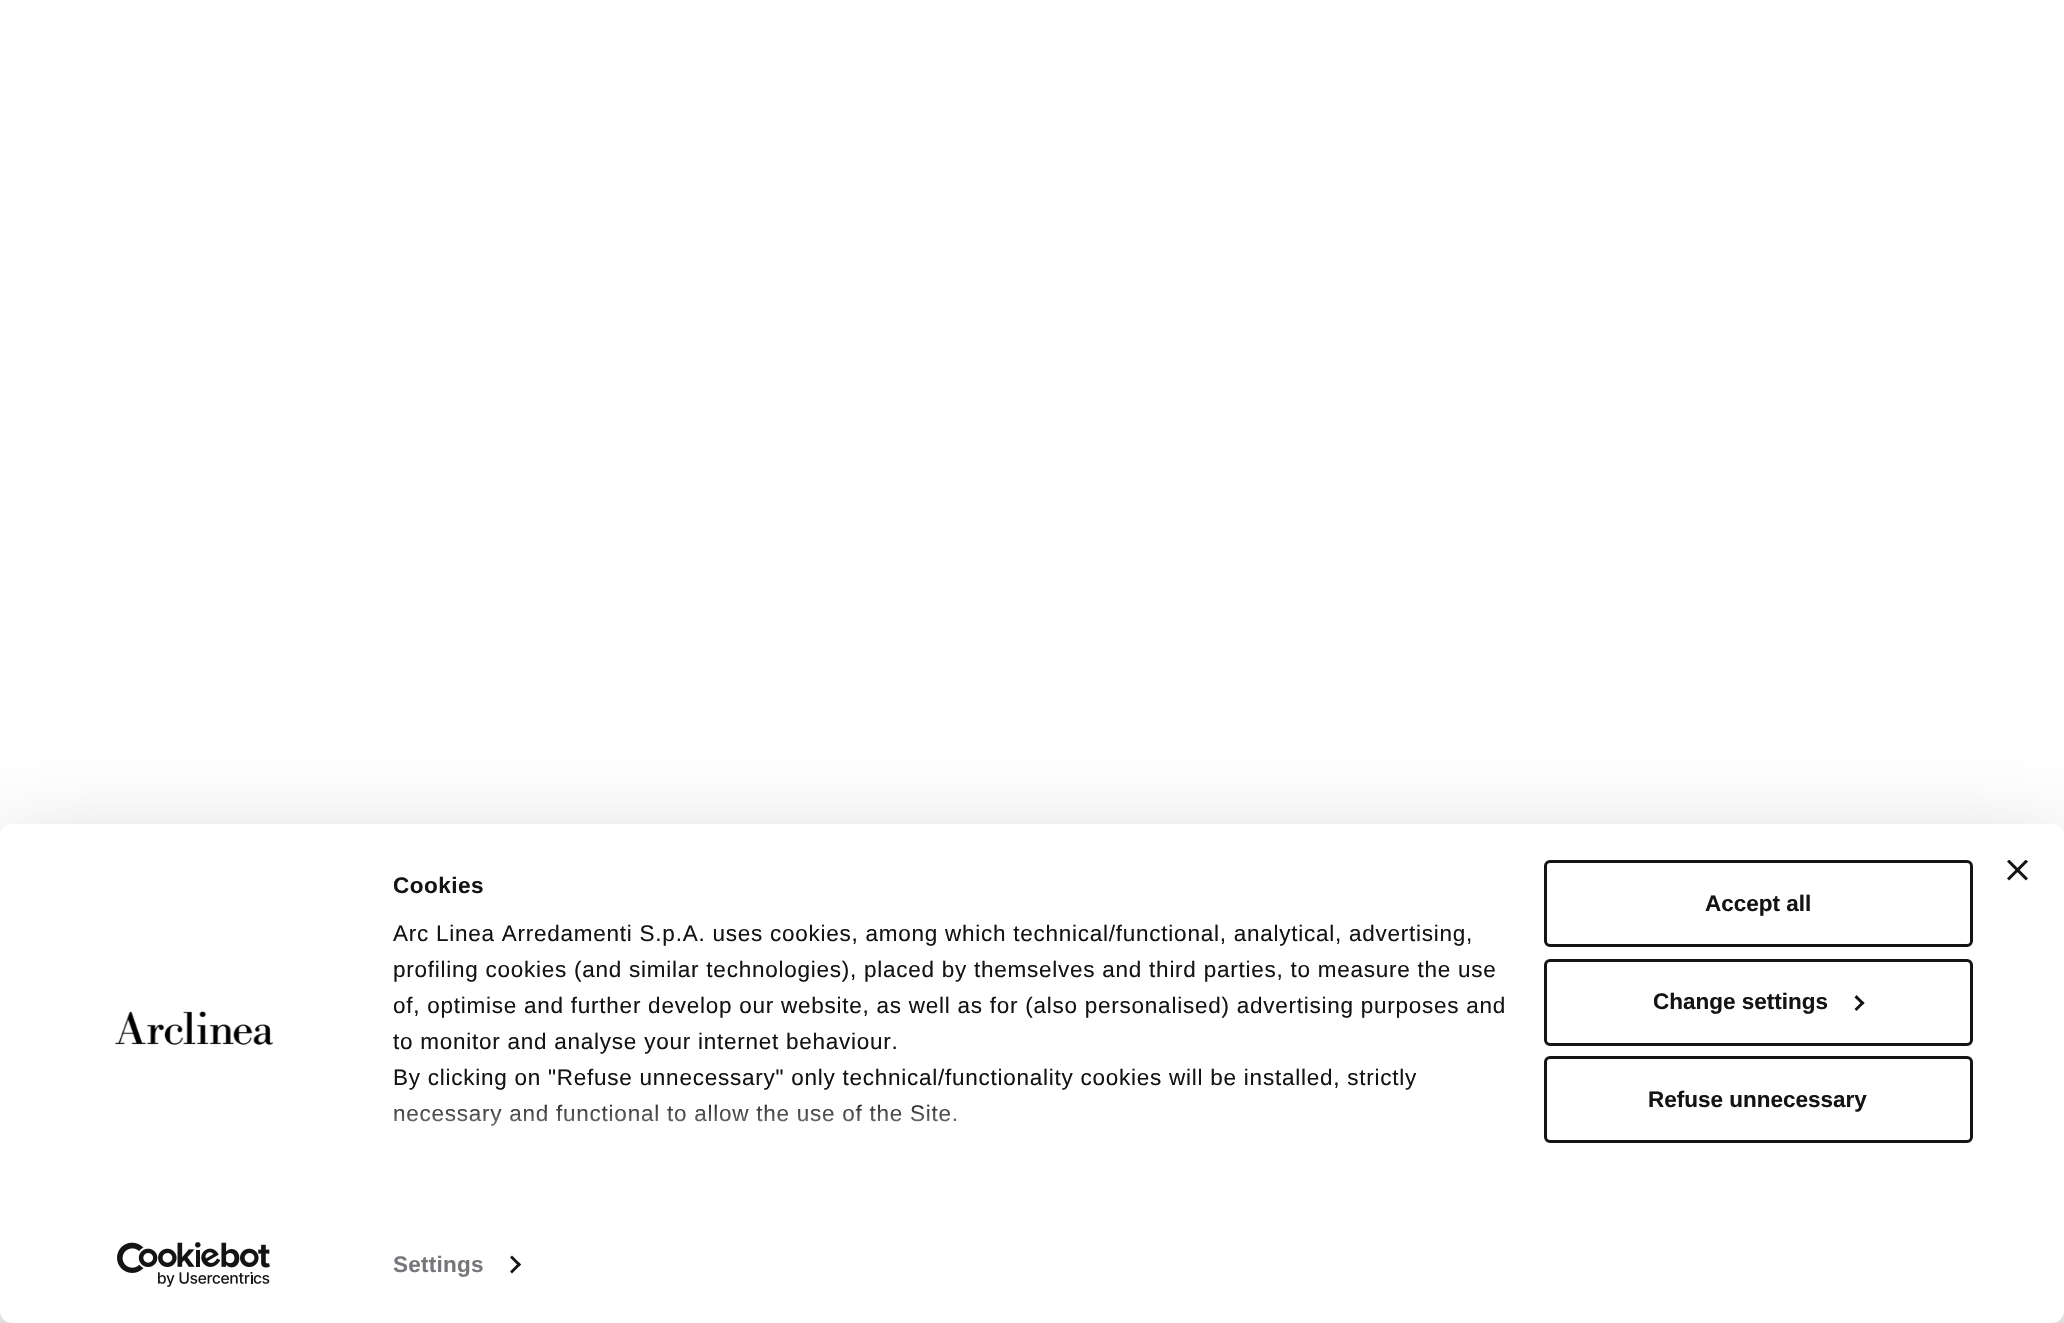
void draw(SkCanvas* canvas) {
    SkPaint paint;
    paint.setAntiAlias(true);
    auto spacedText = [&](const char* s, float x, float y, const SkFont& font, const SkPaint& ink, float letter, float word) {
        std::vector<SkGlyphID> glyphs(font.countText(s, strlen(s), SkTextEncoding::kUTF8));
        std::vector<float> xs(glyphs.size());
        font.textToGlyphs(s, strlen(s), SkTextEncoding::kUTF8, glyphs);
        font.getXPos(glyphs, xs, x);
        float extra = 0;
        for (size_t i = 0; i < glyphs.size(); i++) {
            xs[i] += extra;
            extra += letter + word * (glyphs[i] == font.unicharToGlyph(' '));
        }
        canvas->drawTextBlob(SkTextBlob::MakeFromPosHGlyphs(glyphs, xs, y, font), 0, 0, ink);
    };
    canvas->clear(0xFFFFFFFF);
    paint.setColor(0x4D000000);
    paint.setMaskFilter(SkMaskFilter::MakeBlur(kNormal_SkBlurStyle, 52.5f));
    canvas->drawRoundRect(SkRect::MakeXYWH(0, 869, 2064, 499), 12, 12, paint);
    paint.setMaskFilter(nullptr);
    paint.setColor(0xFFFFFFFF);
    canvas->drawRoundRect(SkRect::MakeXYWH(0, 824, 2064, 499), 12, 12, paint);
    canvas->drawImageRect(SkImages::DeferredFromEncodedData(SkData::MakeFromFileName("img1.png")), SkRect::MakeXYWH(2007, 860, 21, 21), SkSamplingOptions());
    canvas->drawImageRect(SkImages::DeferredFromEncodedData(SkData::MakeFromFileName("img2.png")), SkRect::MakeXYWH(115, 1011, 158, 34), SkSamplingOptions());
    canvas->drawImageRect(SkImages::DeferredFromEncodedData(SkData::MakeFromFileName("img3.png")), SkRect::MakeXYWH(117, 1242, 153, 45), SkSamplingOptions());
    SkFont font1(fontMgr->matchFamilyStyle("Liberation Sans", SkFontStyle::Bold()), 22.5f);
    font1.setSubpixel(true);
    paint.setColor(0xFF141414);
    spacedText("Cookies", 393, 893, font1, paint, 0.5f, 0);
    SkFont font2(fontMgr->matchFamilyStyle("Liberation Sans", SkFontStyle::Normal()), 22.5f);
    font2.setSubpixel(true);
    spacedText("Arc Linea Arredamenti S.p.A. uses cookies, among which technical/functional, analytical, advertising,", 393, 941, font2, paint, 0.75f, 0);
    spacedText("profiling cookies (and similar technologies), placed by themselves and third parties, to measure the use", 393, 977, font2, paint, 0.75f, 0);
    spacedText("of, optimise and further develop our website, as well as for (also personalised) advertising purposes and", 393, 1013, font2, paint, 0.75f, 0);
    spacedText("to monitor and analyse your internet behaviour.", 393, 1049, font2, paint, 0.75f, 0);
    spacedText("By clicking on \"Refuse unnecessary\" only technical/functionality cookies will be installed, strictly", 393, 1085, font2, paint, 0.75f, 0);
    spacedText("necessary and functional to allow the use of the Site.", 393, 1121, font2, paint, 0.75f, 0);
    {
        const SkColor colors[] = {0xFFFFFFFF, 0xCCFFFFFF, 0x00FFFFFF};
        const float stops[] = {0, 0.5f, 1};
        const SkPoint ends[] = {{949, 1209}, {949, 1097}};
        paint.setShader(SkGradientShader::MakeLinear(ends, colors, stops, 3, SkTileMode::kClamp));
        paint.setAlpha(255);
    }
    canvas->drawRect(SkRect::MakeXYWH(394, 1104, 563, 22), paint);
    paint.setShader(nullptr);
    paint.setColor(0xFF76777A);
    spacedText("Settings", 393, 1272, font1, paint, 0.25f, 0);
    paint.setColor(0xFF141414);
    canvas->drawPath(SkPathBuilder().moveTo(512, 1255.5f).lineTo(521, 1264.5f).lineTo(519, 1266.5f).lineTo(510, 1257.5f).close().detach(), paint);
    canvas->drawPath(SkPathBuilder().moveTo(519, 1262.5f).lineTo(521, 1264.5f).lineTo(512, 1273.5f).lineTo(510, 1271.5f).close().detach(), paint);
    paint.setStyle(SkPaint::kStroke_Style);
    paint.setStrokeWidth(3);
    canvas->drawRoundRect(SkRect::MakeXYWH(1545.5f, 861.5f, 426, 84), 4.5f, 4.5f, paint);
    paint.setStyle(SkPaint::kFill_Style);
    canvas->drawString("Accept all", 1705, 911, font1, paint);
    paint.setStyle(SkPaint::kStroke_Style);
    canvas->drawRoundRect(SkRect::MakeXYWH(1545.5f, 960.5f, 426, 84), 4.5f, 4.5f, paint);
    paint.setStyle(SkPaint::kFill_Style);
    canvas->drawString("Change settings", 1653, 1009, font1, paint);
    canvas->drawPath(SkPathBuilder().moveTo(1856.5f, 995).lineTo(1864.5f, 1003).lineTo(1862.5f, 1005).lineTo(1854.5f, 997.5f).close().detach(), paint);
    canvas->drawPath(SkPathBuilder().moveTo(1862.5f, 1001).lineTo(1864.5f, 1003).lineTo(1856.5f, 1011).lineTo(1854.5f, 1009).close().detach(), paint);
    paint.setStyle(SkPaint::kStroke_Style);
    canvas->drawRoundRect(SkRect::MakeXYWH(1545.5f, 1057.5f, 426, 84), 4.5f, 4.5f, paint);
    paint.setStyle(SkPaint::kFill_Style);
    canvas->drawString("Refuse unnecessary", 1648, 1107, font1, paint);
}
